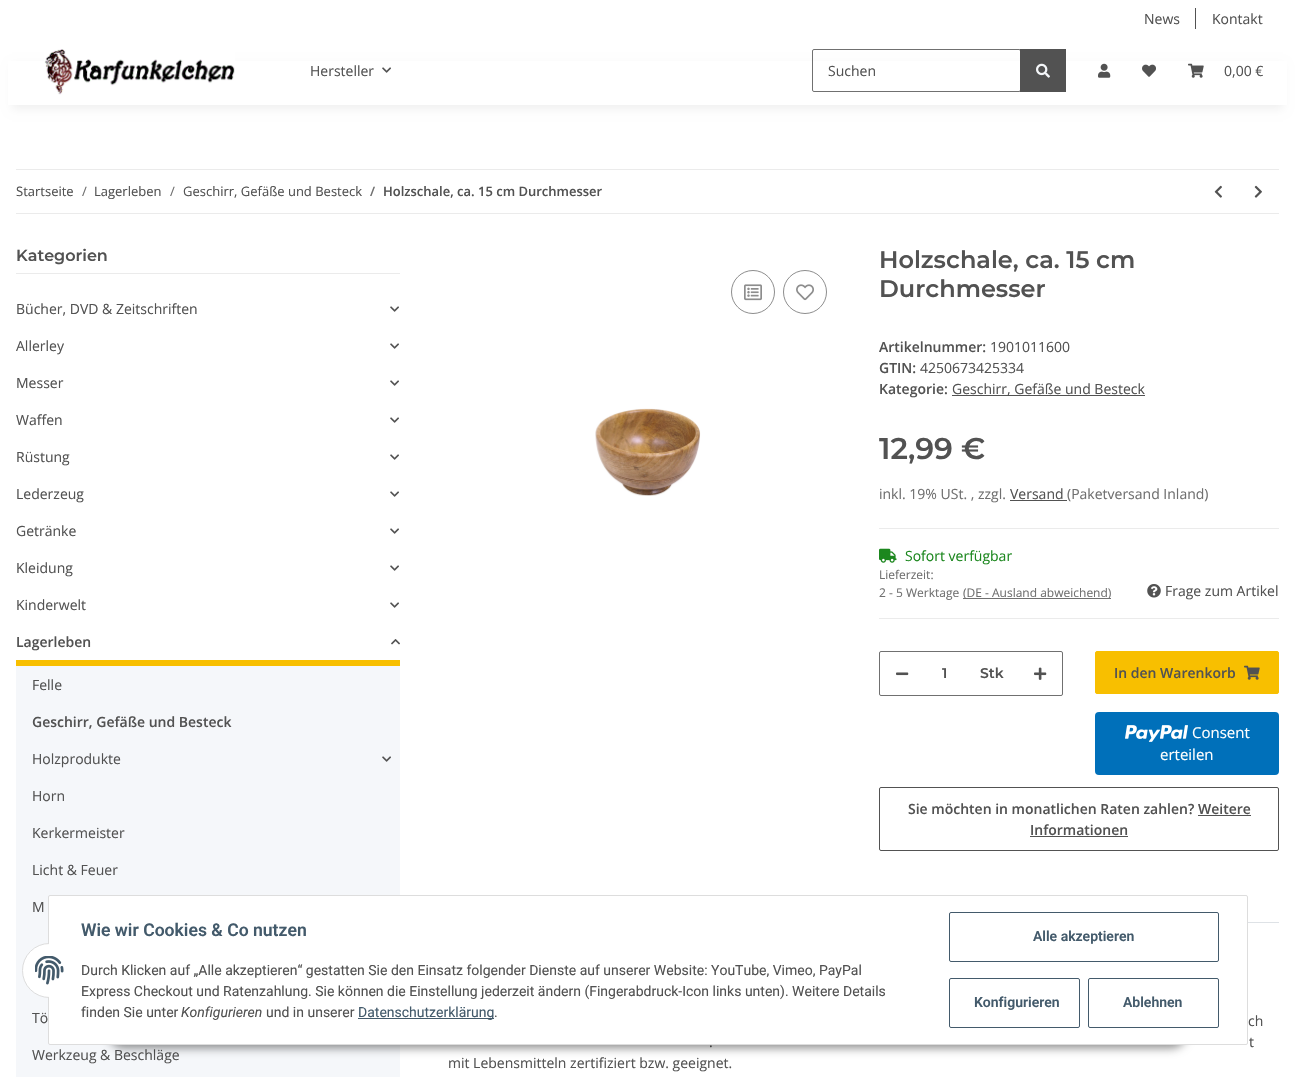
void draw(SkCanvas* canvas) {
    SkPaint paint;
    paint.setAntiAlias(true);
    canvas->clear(0xFFFFFFFF);
    SkFont font1(fontMgr->matchFamilyStyle("Open Sans", SkFontStyle::Normal()), 14);
    font1.setSubpixel(true);
    paint.setColor(0xFF525252);
    canvas->drawString("News", 1144, 24, font1, paint);
    canvas->drawRect(SkRect::MakeXYWH(1195, 8, 1, 21), paint);
    canvas->drawString("Kontakt", 1212, 24, font1, paint);
    paint.setColor(0x0F000000);
    paint.setMaskFilter(SkMaskFilter::MakeBlur(kNormal_SkBlurStyle, 4.5f));
    canvas->drawRect(SkRect::MakeXYWH(12, 65, 1271, 44), paint);
    paint.setMaskFilter(nullptr);
    paint.setColor(0xFFFFFFFF);
    canvas->drawRect(SkRect::MakeXYWH(8, 61, 1279, 44), paint);
    canvas->drawImageRect(SkImages::DeferredFromEncodedData(SkData::MakeFromFileName("img1.png")), SkRect::MakeXYWH(44, 49, 191, 46), SkSamplingOptions());
    paint.setColor(0xFF525252);
    canvas->drawString("Hersteller", 310, 76, font1, paint);
    canvas->drawImageRect(SkImages::DeferredFromEncodedData(SkData::MakeFromFileName("img2.png")), SkRect::MakeXYWH(382, 67, 9, 6), SkSamplingOptions());
    paint.setStyle(SkPaint::kStroke_Style);
    paint.setStrokeWidth(1);
    paint.setColor(0xFF707070);
    canvas->drawRoundRect(SkRect::MakeXYWH(812.5f, 49.5f, 208, 42), 1.5f, 1.5f, paint);
    paint.setStyle(SkPaint::kFill_Style);
    paint.setColor(0xFF525252);
    canvas->drawString("Suchen", 828, 76, font1, paint);
    canvas->drawRect(SkRect::MakeXYWH(1020, 49, 46, 43), paint);
    canvas->drawImageRect(SkImages::DeferredFromEncodedData(SkData::MakeFromFileName("img3.png")), SkRect::MakeXYWH(1036, 63, 14, 15), SkSamplingOptions());
    canvas->drawImageRect(SkImages::DeferredFromEncodedData(SkData::MakeFromFileName("img4.png")), SkRect::MakeXYWH(1098, 63, 13, 15), SkSamplingOptions());
    canvas->drawImageRect(SkImages::DeferredFromEncodedData(SkData::MakeFromFileName("img5.png")), SkRect::MakeXYWH(1142, 64, 14, 13), SkSamplingOptions());
    canvas->drawImageRect(SkImages::DeferredFromEncodedData(SkData::MakeFromFileName("img6.png")), SkRect::MakeXYWH(1188, 63, 16, 15), SkSamplingOptions());
    canvas->drawString("0,00 €", 1224, 76, font1, paint);
    paint.setColor(0xFFEBEBEB);
    canvas->drawRect(SkRect::MakeXYWH(16, 169, 1263, 1), paint);
    canvas->drawRect(SkRect::MakeXYWH(16, 213, 1263, 1), paint);
    SkFont font2(fontMgr->matchFamilyStyle("Open Sans", SkFontStyle::Normal()), 13);
    font2.setSubpixel(true);
    paint.setColor(0xFF525252);
    canvas->drawString("Startseite", 16, 196, font2, paint);
    paint.setColor(0xFF707070);
    canvas->drawString("/", 82, 196, font2, paint);
    paint.setColor(0xFF525252);
    canvas->drawString("Lagerleben", 94, 196, font2, paint);
    paint.setColor(0xFF707070);
    canvas->drawString("/", 170, 196, font2, paint);
    paint.setColor(0xFF525252);
    canvas->drawString("Geschirr, Gefäße und Besteck", 183, 196, font2, paint);
    SkFont font3(fontMgr->matchFamilyStyle("Open Sans", SkFontStyle(600, SkFontStyle::kNormal_Width, SkFontStyle::kUpright_Slant)), 13);
    font3.setSubpixel(true);
    paint.setColor(0xFF707070);
    canvas->drawString("/", 370, 196, font3, paint);
    paint.setColor(0xFF525252);
    canvas->drawString("Holzschale, ca. 15 cm Durchmesser", 383, 196, font3, paint);
    canvas->drawImageRect(SkImages::DeferredFromEncodedData(SkData::MakeFromFileName("img7.png")), SkRect::MakeXYWH(1214, 185, 8, 13), SkSamplingOptions());
    canvas->drawImageRect(SkImages::DeferredFromEncodedData(SkData::MakeFromFileName("img8.png")), SkRect::MakeXYWH(1254, 185, 8, 13), SkSamplingOptions());
    paint.setColor(0xFFEBEBEB);
    canvas->drawRect(SkRect::MakeXYWH(16, 273, 384, 1), paint);
    SkFont font4(fontMgr->matchFamilyStyle("Montserrat", SkFontStyle(600, SkFontStyle::kNormal_Width, SkFontStyle::kUpright_Slant)), 16);
    font4.setSubpixel(true);
    paint.setColor(0xFF525252);
    canvas->drawString("Kategorien", 16, 261, font4, paint);
    canvas->drawString("Bücher, DVD & Zeitschriften", 16, 314, font1, paint);
    canvas->drawImageRect(SkImages::DeferredFromEncodedData(SkData::MakeFromFileName("img2.png")), SkRect::MakeXYWH(390, 306, 9, 6), SkSamplingOptions());
    canvas->drawString("Allerley", 16, 351, font1, paint);
    canvas->drawImageRect(SkImages::DeferredFromEncodedData(SkData::MakeFromFileName("img2.png")), SkRect::MakeXYWH(390, 343, 9, 6), SkSamplingOptions());
    canvas->drawString("Messer", 16, 388, font1, paint);
    canvas->drawImageRect(SkImages::DeferredFromEncodedData(SkData::MakeFromFileName("img2.png")), SkRect::MakeXYWH(390, 380, 9, 6), SkSamplingOptions());
    canvas->drawString("Waffen", 16, 425, font1, paint);
    canvas->drawImageRect(SkImages::DeferredFromEncodedData(SkData::MakeFromFileName("img2.png")), SkRect::MakeXYWH(390, 417, 9, 6), SkSamplingOptions());
    canvas->drawString("Rüstung", 16, 462, font1, paint);
    canvas->drawImageRect(SkImages::DeferredFromEncodedData(SkData::MakeFromFileName("img2.png")), SkRect::MakeXYWH(390, 454, 9, 6), SkSamplingOptions());
    canvas->drawString("Lederzeug", 16, 499, font1, paint);
    canvas->drawImageRect(SkImages::DeferredFromEncodedData(SkData::MakeFromFileName("img2.png")), SkRect::MakeXYWH(390, 491, 9, 6), SkSamplingOptions());
    canvas->drawString("Getränke", 16, 536, font1, paint);
    canvas->drawImageRect(SkImages::DeferredFromEncodedData(SkData::MakeFromFileName("img2.png")), SkRect::MakeXYWH(390, 528, 9, 6), SkSamplingOptions());
    canvas->drawString("Kleidung", 16, 573, font1, paint);
    canvas->drawImageRect(SkImages::DeferredFromEncodedData(SkData::MakeFromFileName("img2.png")), SkRect::MakeXYWH(390, 565, 9, 6), SkSamplingOptions());
    canvas->drawString("Kinderwelt", 16, 610, font1, paint);
    canvas->drawImageRect(SkImages::DeferredFromEncodedData(SkData::MakeFromFileName("img2.png")), SkRect::MakeXYWH(390, 602, 9, 6), SkSamplingOptions());
    paint.setColor(0xFFF8BF00);
    canvas->drawRect(SkRect::MakeXYWH(16, 660, 384, 6), paint);
    SkFont font5(fontMgr->matchFamilyStyle("Open Sans", SkFontStyle(600, SkFontStyle::kNormal_Width, SkFontStyle::kUpright_Slant)), 14);
    font5.setSubpixel(true);
    paint.setColor(0xFF525252);
    canvas->drawString("Lagerleben", 16, 647, font5, paint);
    canvas->drawImageRect(SkImages::DeferredFromEncodedData(SkData::MakeFromFileName("img9.png")), SkRect::MakeXYWH(391, 639, 9, 6), SkSamplingOptions());
    paint.setColor(0xFFF5F7FA);
    canvas->drawRect(SkRect::MakeXYWH(16, 666, 384, 411), paint);
    paint.setColor(0xFF525252);
    canvas->drawString("Felle", 32, 690, font1, paint);
    canvas->drawString("Geschirr, Gefäße und Besteck", 32, 727, font5, paint);
    canvas->drawString("Holzprodukte", 32, 764, font1, paint);
    canvas->drawImageRect(SkImages::DeferredFromEncodedData(SkData::MakeFromFileName("img10.png")), SkRect::MakeXYWH(382, 756, 9, 6), SkSamplingOptions());
    canvas->drawString("Horn", 32, 801, font1, paint);
    canvas->drawString("Kerkermeister", 32, 838, font1, paint);
    canvas->drawString("Licht & Feuer", 32, 875, font1, paint);
    canvas->drawString("M", 32, 912, font1, paint);
    canvas->drawString("Tö", 32, 1023, font1, paint);
    canvas->drawString("Werkzeug & Beschläge", 32, 1060, font1, paint);
    paint.setStyle(SkPaint::kStroke_Style);
    paint.setColor(0xFF8D8D8D);
    canvas->drawCircle(753, 292, 21.5f, paint);
    canvas->drawImageRect(SkImages::DeferredFromEncodedData(SkData::MakeFromFileName("img11.png")), SkRect::MakeXYWH(744, 284, 18, 17), SkSamplingOptions());
    canvas->drawCircle(805, 292, 21.5f, paint);
    canvas->drawImageRect(SkImages::DeferredFromEncodedData(SkData::MakeFromFileName("img12.png")), SkRect::MakeXYWH(796, 284, 18, 17), SkSamplingOptions());
    canvas->drawImageRect(SkImages::DeferredFromEncodedData(SkData::MakeFromFileName("img13.png")), SkRect::MakeXYWH(595, 408, 106, 88), SkSamplingOptions());
    SkFont font6(fontMgr->matchFamilyStyle("Montserrat", SkFontStyle(600, SkFontStyle::kNormal_Width, SkFontStyle::kUpright_Slant)), 24);
    font6.setSubpixel(true);
    paint.setStyle(SkPaint::kFill_Style);
    paint.setColor(0xFF525252);
    canvas->drawString("Holzschale, ca. 15 cm", 879, 268, font6, paint);
    canvas->drawString("Durchmesser", 879, 297, font6, paint);
    canvas->drawString("Artikelnummer:", 879, 352, font5, paint);
    canvas->drawString("1901011600", 990, 352, font1, paint);
    canvas->drawString("GTIN:", 879, 373, font5, paint);
    canvas->drawString("4250673425334", 920, 373, font1, paint);
    canvas->drawString("Kategorie:", 879, 394, font5, paint);
    canvas->drawRect(SkRect::MakeXYWH(952, 395, 193, 1), paint);
    canvas->drawString("Geschirr, Gefäße und Besteck", 952, 394, font1, paint);
    SkFont font7(fontMgr->matchFamilyStyle("Montserrat", SkFontStyle(600, SkFontStyle::kNormal_Width, SkFontStyle::kUpright_Slant)), 30);
    font7.setSubpixel(true);
    canvas->drawString("12,99 €", 879, 459, font7, paint);
    paint.setColor(0xFF707070);
    canvas->drawString("inkl. 19% USt. , zzgl.", 879, 499, font1, paint);
    paint.setColor(0xFF525252);
    canvas->drawString("Versand", 1010, 499, font1, paint);
    paint.setColor(0xFF707070);
    canvas->drawString("(Paketversand Inland)", 1067, 499, font1, paint);
    paint.setColor(0xFF525252);
    canvas->drawRect(SkRect::MakeXYWH(1010, 500, 57, 1), paint);
    paint.setColor(0xFFEBEBEB);
    canvas->drawRect(SkRect::MakeXYWH(879, 528, 400, 1), paint);
    canvas->drawRect(SkRect::MakeXYWH(879, 618, 400, 1), paint);
    canvas->drawImageRect(SkImages::DeferredFromEncodedData(SkData::MakeFromFileName("img14.png")), SkRect::MakeXYWH(879, 548, 18, 15), SkSamplingOptions());
    paint.setColor(0xFF1C871E);
    canvas->drawString("Sofort verfügbar", 905, 561, font1, paint);
    SkFont font8(fontMgr->matchFamilyStyle("Open Sans", SkFontStyle::Normal()), 12);
    font8.setSubpixel(true);
    paint.setColor(0xFF707070);
    canvas->drawString("Lieferzeit:", 879, 579, font8, paint);
    canvas->drawString("2 - 5 Werktage", 879, 597, font8, paint);
    canvas->drawRect(SkRect::MakeXYWH(963, 598, 148, 1), paint);
    canvas->drawString("(DE - Ausland abweichend)", 963, 597, font8, paint);
    canvas->drawImageRect(SkImages::DeferredFromEncodedData(SkData::MakeFromFileName("img15.png")), SkRect::MakeXYWH(1147, 584, 14, 14), SkSamplingOptions());
    paint.setColor(0xFF525252);
    canvas->drawString("Frage zum Artikel", 1165, 596, font1, paint);
    paint.setStyle(SkPaint::kStroke_Style);
    paint.setColor(0xFF707070);
    canvas->drawRoundRect(SkRect::MakeXYWH(879.5f, 651.5f, 183, 44), 1.5f, 1.5f, paint);
    canvas->drawImageRect(SkImages::DeferredFromEncodedData(SkData::MakeFromFileName("img16.png")), SkRect::MakeXYWH(896, 672, 13, 4), SkSamplingOptions());
    SkFont font9(fontMgr->matchFamilyStyle("Montserrat", SkFontStyle(600, SkFontStyle::kNormal_Width, SkFontStyle::kUpright_Slant)), 14);
    font9.setSubpixel(true);
    paint.setStyle(SkPaint::kFill_Style);
    paint.setColor(0xFF525252);
    canvas->drawString("1", 942, 678, font9, paint);
    canvas->drawString("Stk", 980, 678, font9, paint);
    canvas->drawImageRect(SkImages::DeferredFromEncodedData(SkData::MakeFromFileName("img17.png")), SkRect::MakeXYWH(1034, 667, 13, 13), SkSamplingOptions());
    paint.setColor(0xFFF8BF00);
    canvas->drawRoundRect(SkRect::MakeXYWH(1095.5f, 651.5f, 183, 42), 1.5f, 1.5f, paint);
    paint.setStyle(SkPaint::kStroke_Style);
    canvas->drawRoundRect(SkRect::MakeXYWH(1095.5f, 651.5f, 183, 42), 1.5f, 1.5f, paint);
    paint.setStyle(SkPaint::kFill_Style);
    paint.setColor(0xFF525252);
    canvas->drawString("In den Warenkorb", 1114, 678, font5, paint);
    canvas->drawImageRect(SkImages::DeferredFromEncodedData(SkData::MakeFromFileName("img18.png")), SkRect::MakeXYWH(1244, 665, 16, 15), SkSamplingOptions());
    paint.setColor(0xFF0070BA);
    canvas->drawRoundRect(SkRect::MakeXYWH(1095, 712, 184, 63), 4, 4, paint);
    canvas->drawImageRect(SkImages::DeferredFromEncodedData(SkData::MakeFromFileName("img19.png")), SkRect::MakeXYWH(1125, 725, 63, 17), SkSamplingOptions());
    SkFont font10(fontMgr->matchFamilyStyle("Open Sans", SkFontStyle::Normal()), 15);
    font10.setSubpixel(true);
    paint.setColor(0xFFFFFFFF);
    canvas->drawString("Consent", 1192, 738, font10, paint);
    canvas->drawString("erteilen", 1160, 760, font10, paint);
    paint.setStyle(SkPaint::kStroke_Style);
    paint.setColor(0xFF525252);
    canvas->drawRoundRect(SkRect::MakeXYWH(879.5f, 787.5f, 399, 63), 1.5f, 1.5f, paint);
    paint.setStyle(SkPaint::kFill_Style);
    canvas->drawString("Sie möchten in monatlichen Raten zahlen? Weitere", 908, 814, font5, paint);
    canvas->drawString("Informationen", 1030, 835, font5, paint);
    canvas->drawRect(SkRect::MakeXYWH(1198, 815, 53, 1), paint);
    canvas->drawRect(SkRect::MakeXYWH(1030, 836, 98, 1), paint);
    paint.setColor(0xFFDEE2E6);
    canvas->drawRect(SkRect::MakeXYWH(1248, 922, 31, 1), paint);
    paint.setColor(0xFF525252);
    canvas->drawString("ch", 1248, 1026, font1, paint);
    canvas->drawString(".", 709, 1047, font1, paint);
    canvas->drawString("t", 1249, 1047, font1, paint);
    canvas->drawString("mit Lebensmitteln zertifiziert bzw. geeignet.", 448, 1068, font1, paint);
    paint.setColor(0x73000000);
    paint.setMaskFilter(SkMaskFilter::MakeBlur(kNormal_SkBlurStyle, 5));
    canvas->drawRoundRect(SkRect::MakeXYWH(108, 1016, 1079, 32), 16, 16, paint);
    paint.setMaskFilter(nullptr);
    paint.setColor(0xFFFFFFFF);
    canvas->drawRoundRect(SkRect::MakeXYWH(48.5f, 895.5f, 1199, 149), 1.5f, 1.5f, paint);
    paint.setStyle(SkPaint::kStroke_Style);
    paint.setColor(0xFFDDDDDD);
    canvas->drawRoundRect(SkRect::MakeXYWH(48.5f, 895.5f, 1199, 149), 1.5f, 1.5f, paint);
    paint.setStyle(SkPaint::kFill_Style);
    paint.setColor(0xFFFFFFFF);
    canvas->drawCircle(49.5f, 970.5f, 27, paint);
    paint.setStyle(SkPaint::kStroke_Style);
    paint.setColor(0xFFDDDDDD);
    canvas->drawCircle(49.5f, 970.5f, 27, paint);
    paint.setStyle(SkPaint::kFill_Style);
    paint.setColor(0xFFFFFFFF);
    canvas->drawRect(SkRect::MakeXYWH(49, 943, 28, 55), paint);
    canvas->drawImageRect(SkImages::DeferredFromEncodedData(SkData::MakeFromFileName("img20.png")), SkRect::MakeXYWH(35, 956, 29, 29), SkSamplingOptions());
    SkFont font11(fontMgr->matchFamilyStyle("Roboto", SkFontStyle(600, SkFontStyle::kNormal_Width, SkFontStyle::kUpright_Slant)), 17.6f);
    font11.setSubpixel(true);
    paint.setColor(0xFF435A6B);
    canvas->drawString("Wie wir Cookies & Co nutzen", 81, 936, font11, paint);
    SkFont font12(fontMgr->matchFamilyStyle("Roboto", SkFontStyle::Normal()), 14);
    font12.setSubpixel(true);
    paint.setColor(0xFF525252);
    canvas->drawString("Durch Klicken auf „Alle akzeptieren“ gestatten Sie den Einsatz folgender Dienste auf unserer Website: YouTube, Vimeo, PayPal", 81, 975, font12, paint);
    canvas->drawString("Express Checkout und Ratenzahlung. Sie können die Einstellung jederzeit ändern (Fingerabdruck-Icon links unten). Weitere Details", 81, 996, font12, paint);
    canvas->drawString("finden Sie unter", 81, 1017, font12, paint);
    SkFont font13(fontMgr->matchFamilyStyle("Roboto", SkFontStyle::Italic()), 14);
    font13.setSubpixel(true);
    canvas->drawString("Konfigurieren", 181, 1017, font13, paint);
    canvas->drawString("und in unserer", 266, 1017, font12, paint);
    paint.setColor(0xFF435A6B);
    canvas->drawRect(SkRect::MakeXYWH(358, 1018, 136, 1), paint);
    canvas->drawString("Datenschutzerklärung", 358, 1017, font12, paint);
    paint.setColor(0xFF525252);
    canvas->drawString(".", 494, 1017, font12, paint);
    paint.setStyle(SkPaint::kStroke_Style);
    paint.setColor(0xFF435A6B);
    canvas->drawRoundRect(SkRect::MakeXYWH(949.5f, 912.5f, 269, 49), 1.5f, 1.5f, paint);
    SkFont font14(fontMgr->matchFamilyStyle("Roboto", SkFontStyle(600, SkFontStyle::kNormal_Width, SkFontStyle::kUpright_Slant)), 14);
    font14.setSubpixel(true);
    paint.setStyle(SkPaint::kFill_Style);
    canvas->drawString("Alle akzeptieren", 1033, 941, font14, paint);
    paint.setStyle(SkPaint::kStroke_Style);
    canvas->drawRoundRect(SkRect::MakeXYWH(949.5f, 978.5f, 130, 49), 1.5f, 1.5f, paint);
    paint.setStyle(SkPaint::kFill_Style);
    canvas->drawString("Konfigurieren", 974, 1007, font14, paint);
    paint.setStyle(SkPaint::kStroke_Style);
    canvas->drawRoundRect(SkRect::MakeXYWH(1088.5f, 978.5f, 130, 49), 1.5f, 1.5f, paint);
    paint.setStyle(SkPaint::kFill_Style);
    canvas->drawString("Ablehnen", 1123, 1007, font14, paint);
}
